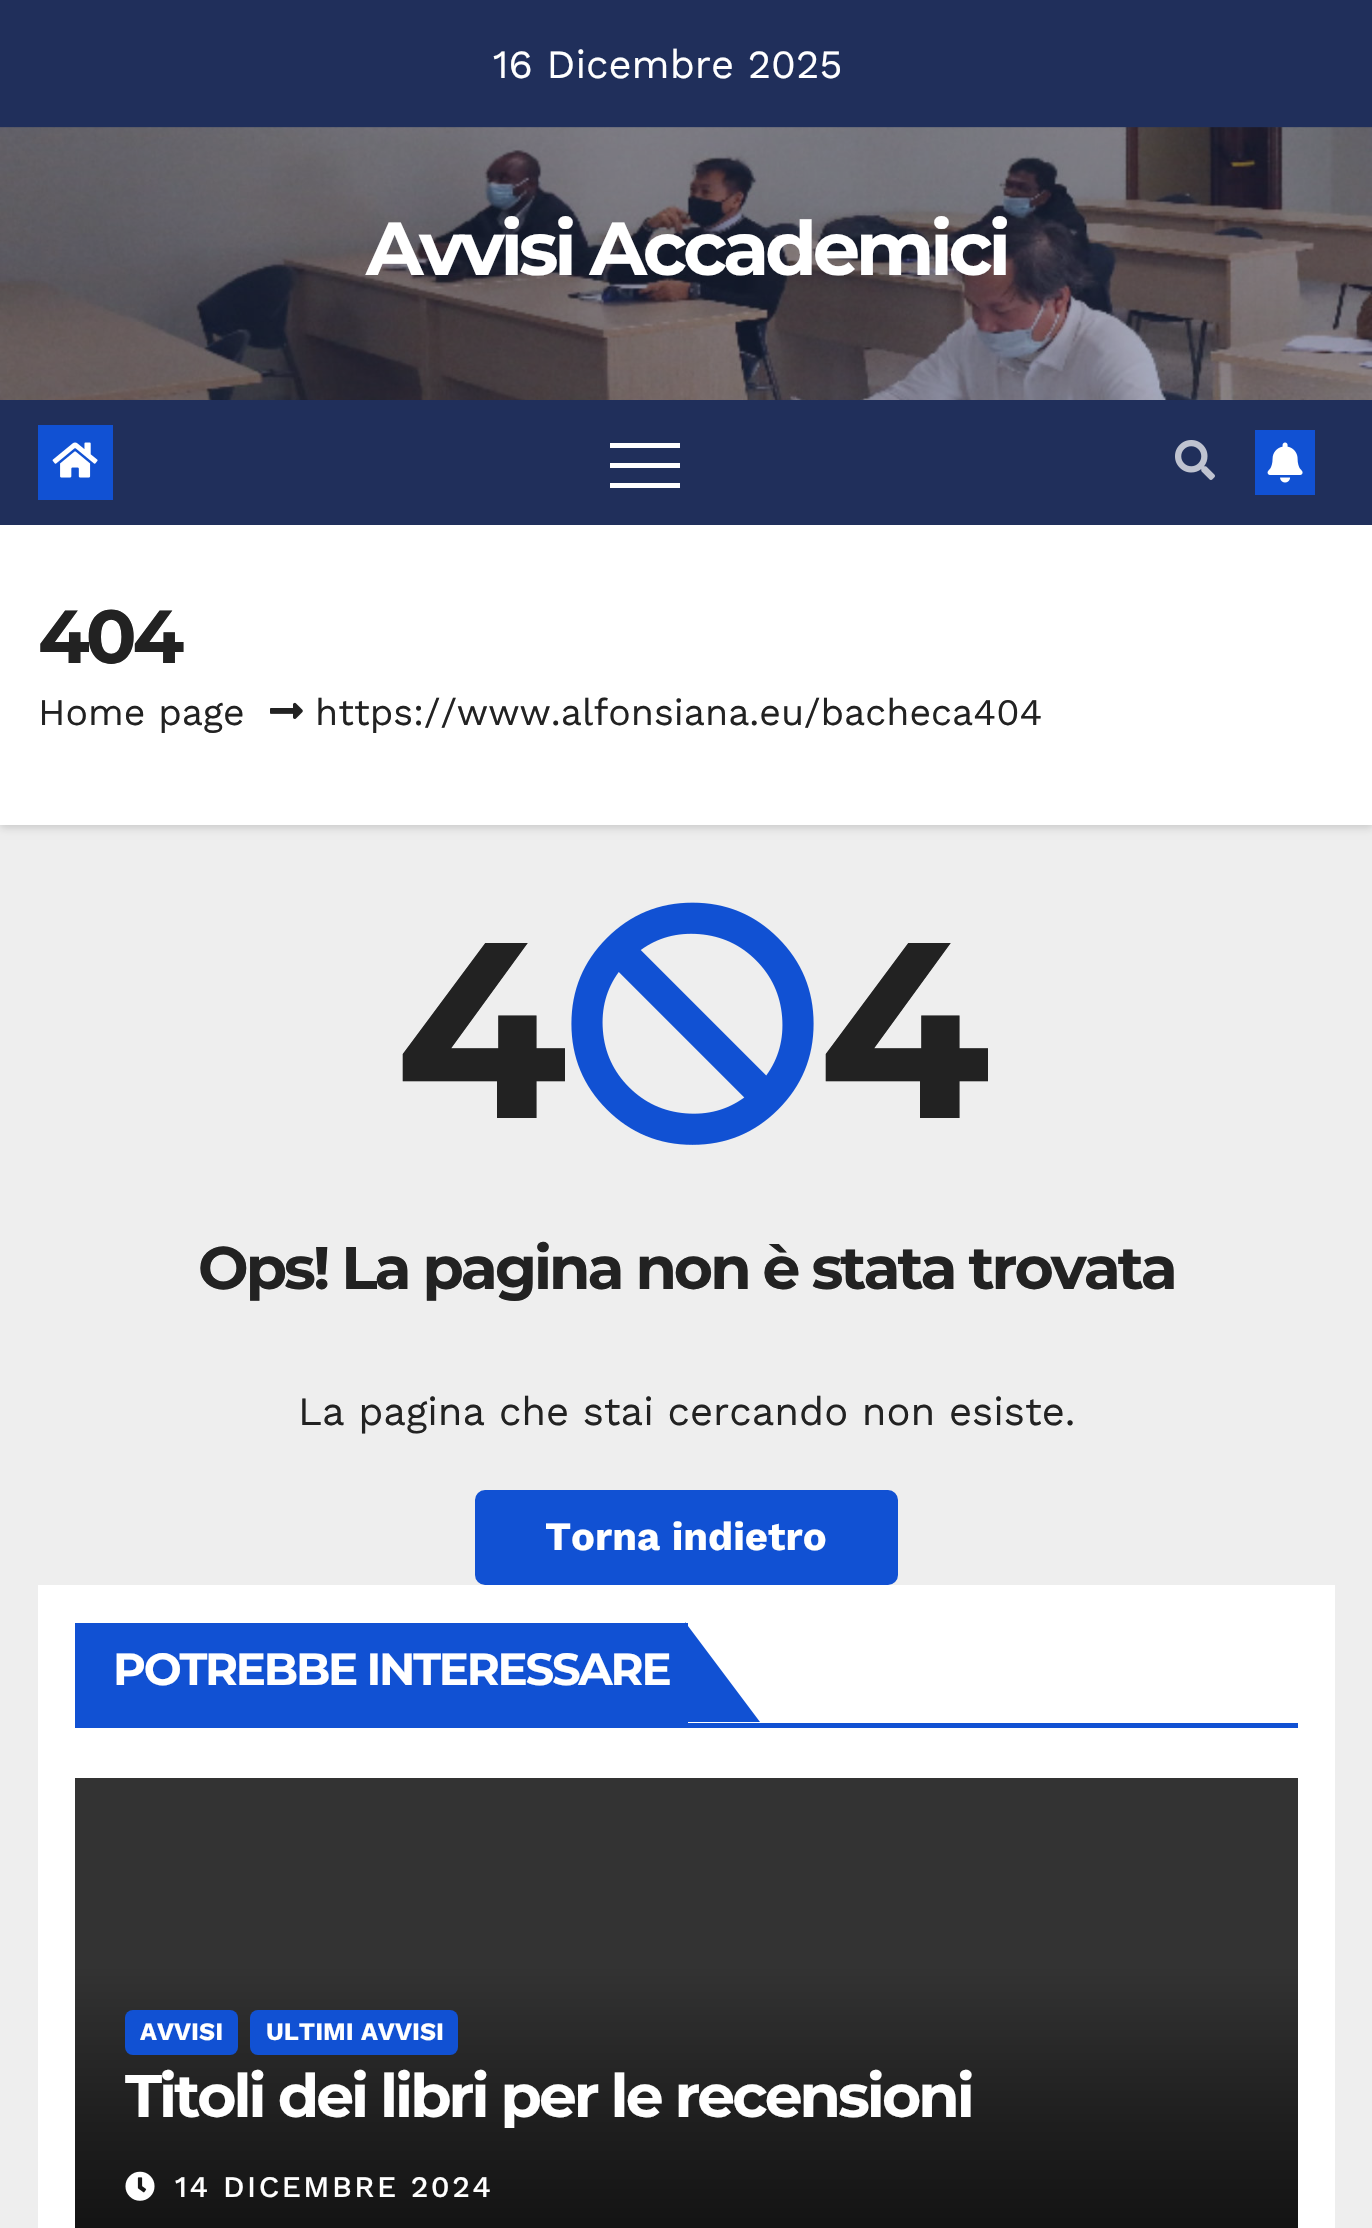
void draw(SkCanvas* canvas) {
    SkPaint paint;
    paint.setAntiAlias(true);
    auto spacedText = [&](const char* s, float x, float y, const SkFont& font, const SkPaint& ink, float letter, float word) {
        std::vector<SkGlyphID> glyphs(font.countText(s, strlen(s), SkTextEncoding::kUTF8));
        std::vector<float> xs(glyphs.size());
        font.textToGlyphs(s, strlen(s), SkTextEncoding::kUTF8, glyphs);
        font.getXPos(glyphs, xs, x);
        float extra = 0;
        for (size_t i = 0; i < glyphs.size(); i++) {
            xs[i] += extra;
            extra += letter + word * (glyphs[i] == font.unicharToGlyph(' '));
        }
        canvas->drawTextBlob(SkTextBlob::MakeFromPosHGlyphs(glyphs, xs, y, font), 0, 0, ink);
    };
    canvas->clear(0xFFEEEEEE);
    paint.setColor(0xFF202F5B);
    canvas->drawRect(SkRect::MakeXYWH(0, 0, 1372, 128), paint);
    SkFont font1(fontMgr->matchFamilyStyle("Work Sans", SkFontStyle::Normal()), 40);
    font1.setSubpixel(true);
    paint.setColor(0xFFFFFFFF);
    canvas->drawString("16 Dicembre 2025", 493, 78, font1, paint);
    canvas->drawImageRect(SkImages::DeferredFromEncodedData(SkData::MakeFromFileName("img1.png")), SkRect::MakeXYWH(0, 127, 1372, 273), SkSamplingOptions());
    SkFont font2(fontMgr->matchFamilyStyle("Montserrat", SkFontStyle::Bold()), 75);
    font2.setSubpixel(true);
    spacedText("Avvisi Accademici", 366, 275, font2, paint, -4.25f, 0);
    paint.setColor(0x26000000);
    paint.setMaskFilter(SkMaskFilter::MakeBlur(kNormal_SkBlurStyle, 4));
    canvas->drawRect(SkRect::MakeXYWH(0, 528, 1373, 300), paint);
    paint.setMaskFilter(nullptr);
    paint.setColor(0xFF202F5B);
    canvas->drawRect(SkRect::MakeXYWH(0, 400, 1372, 125), paint);
    paint.setColor(0xFF1151D3);
    canvas->drawRect(SkRect::MakeXYWH(38, 425, 75, 75), paint);
    canvas->drawImageRect(SkImages::DeferredFromEncodedData(SkData::MakeFromFileName("img2.png")), SkRect::MakeXYWH(52, 442, 46, 36), SkSamplingOptions());
    paint.setColor(0xFFFFFFFF);
    canvas->drawRect(SkRect::MakeXYWH(610, 443, 70, 5), paint);
    canvas->drawRect(SkRect::MakeXYWH(610, 463, 70, 5), paint);
    canvas->drawRect(SkRect::MakeXYWH(610, 483, 70, 5), paint);
    canvas->drawImageRect(SkImages::DeferredFromEncodedData(SkData::MakeFromFileName("img3.png")), SkRect::MakeXYWH(1175, 440, 40, 40), SkSamplingOptions());
    paint.setColor(0xFF1151D3);
    canvas->drawRect(SkRect::MakeXYWH(1255, 430, 60, 65), paint);
    canvas->drawImageRect(SkImages::DeferredFromEncodedData(SkData::MakeFromFileName("img4.png")), SkRect::MakeXYWH(1267, 442, 36, 41), SkSamplingOptions());
    paint.setColor(0xFFFFFFFF);
    canvas->drawRect(SkRect::MakeXYWH(0, 525, 1372, 300), paint);
    paint.setColor(0xFF222222);
    spacedText("404", 38, 663, font2, paint, -4, 0);
    SkFont font3(fontMgr->matchFamilyStyle("Work Sans", SkFontStyle::Normal()), 37.5f);
    font3.setSubpixel(true);
    canvas->drawString("Home page", 38, 725, font3, paint);
    canvas->drawImageRect(SkImages::DeferredFromEncodedData(SkData::MakeFromFileName("img5.png")), SkRect::MakeXYWH(270, 702, 33, 17), SkSamplingOptions());
    canvas->drawString("https://www.alfonsiana.eu/bacheca404", 315, 725, font3, paint);
    SkFont font4(fontMgr->matchFamilyStyle("Montserrat", SkFontStyle::Bold()), 250);
    font4.setSubpixel(true);
    spacedText("4", 395, 1118, font4, paint, -12, 0);
    canvas->drawImageRect(SkImages::DeferredFromEncodedData(SkData::MakeFromFileName("img6.png")), SkRect::MakeXYWH(571, 902, 243, 243), SkSamplingOptions());
    spacedText("4", 818, 1118, font4, paint, -12, 0);
    SkFont font5(fontMgr->matchFamilyStyle("Montserrat", SkFontStyle::Bold()), 60);
    font5.setSubpixel(true);
    spacedText("Ops! La pagina non è stata trovata", 198, 1289, font5, paint, -3, 0);
    canvas->drawString("La pagina che stai cercando non esiste.", 298, 1425, font1, paint);
    paint.setColor(0xFF1151D3);
    canvas->drawRoundRect(SkRect::MakeXYWH(477.5f, 1492.5f, 418, 90), 7.5f, 7.5f, paint);
    paint.setStyle(SkPaint::kStroke_Style);
    paint.setStrokeWidth(5);
    canvas->drawRoundRect(SkRect::MakeXYWH(477.5f, 1492.5f, 418, 90), 7.5f, 7.5f, paint);
    SkFont font6(fontMgr->matchFamilyStyle("Work Sans", SkFontStyle::Bold()), 40);
    font6.setSubpixel(true);
    paint.setStyle(SkPaint::kFill_Style);
    paint.setColor(0xFFFFFFFF);
    canvas->drawString("Torna indietro", 545, 1550, font6, paint);
    canvas->drawRect(SkRect::MakeXYWH(38, 1585, 1297, 643), paint);
    paint.setColor(0xFF1151D3);
    canvas->drawRect(SkRect::MakeXYWH(75, 1723, 1223, 5), paint);
    canvas->drawRect(SkRect::MakeXYWH(75, 1623, 613, 100), paint);
    SkFont font7(fontMgr->matchFamilyStyle("Montserrat", SkFontStyle::Bold()), 45);
    font7.setSubpixel(true);
    paint.setColor(0xFFFFFFFF);
    spacedText("POTREBBE INTERESSARE", 113, 1685, font7, paint, -2.25f, 0);
    paint.setColor(0xFF1151D3);
    canvas->drawPath(SkPathBuilder().moveTo(685, 1722).lineTo(685, 1622).lineTo(760, 1722).close().detach(), paint);
    paint.setColor(0xFF333333);
    canvas->drawRect(SkRect::MakeXYWH(75, 1778, 1223, 187), paint);
    {
        const SkColor colors[] = {0xFF333333, 0xFF1F1F1F, 0xFF0F0F0F};
        const float stops[] = {0, 0.5f, 1};
        const SkPoint ends[] = {{686, 1965}, {686, 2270}};
        paint.setShader(SkGradientShader::MakeLinear(ends, colors, stops, 3, SkTileMode::kClamp));
        paint.setAlpha(255);
    }
    canvas->drawRect(SkRect::MakeXYWH(75, 1965, 1223, 263), paint);
    paint.setShader(nullptr);
    paint.setColor(0xFF1151D3);
    canvas->drawRoundRect(SkRect::MakeXYWH(125, 2010, 113, 45), 8, 8, paint);
    SkFont font8(fontMgr->matchFamilyStyle("Work Sans", SkFontStyle::Bold()), 25);
    font8.setSubpixel(true);
    paint.setColor(0xFFFFFFFF);
    canvas->drawString("AVVISI", 140, 2040, font8, paint);
    paint.setColor(0xFF1151D3);
    canvas->drawRoundRect(SkRect::MakeXYWH(250, 2010, 208, 45), 8, 8, paint);
    paint.setColor(0xFFFFFFFF);
    canvas->drawString("ULTIMI AVVISI", 266, 2040, font8, paint);
    canvas->save();
    canvas->clipRect(SkRect::MakeXYWH(125, 2065, 1123, 63));
    spacedText("Titoli dei libri per le recensioni", 125, 2117, font5, paint, -3, 0);
    canvas->restore();
    canvas->drawImageRect(SkImages::DeferredFromEncodedData(SkData::MakeFromFileName("img7.png")), SkRect::MakeXYWH(125, 2171, 30, 30), SkSamplingOptions());
    SkFont font9(fontMgr->matchFamilyStyle("Work Sans", SkFontStyle(500, SkFontStyle::kNormal_Width, SkFontStyle::kUpright_Slant)), 30);
    font9.setSubpixel(true);
    spacedText("14 DICEMBRE 2024", 175, 2197, font9, paint, 2.5f, 0);
}
